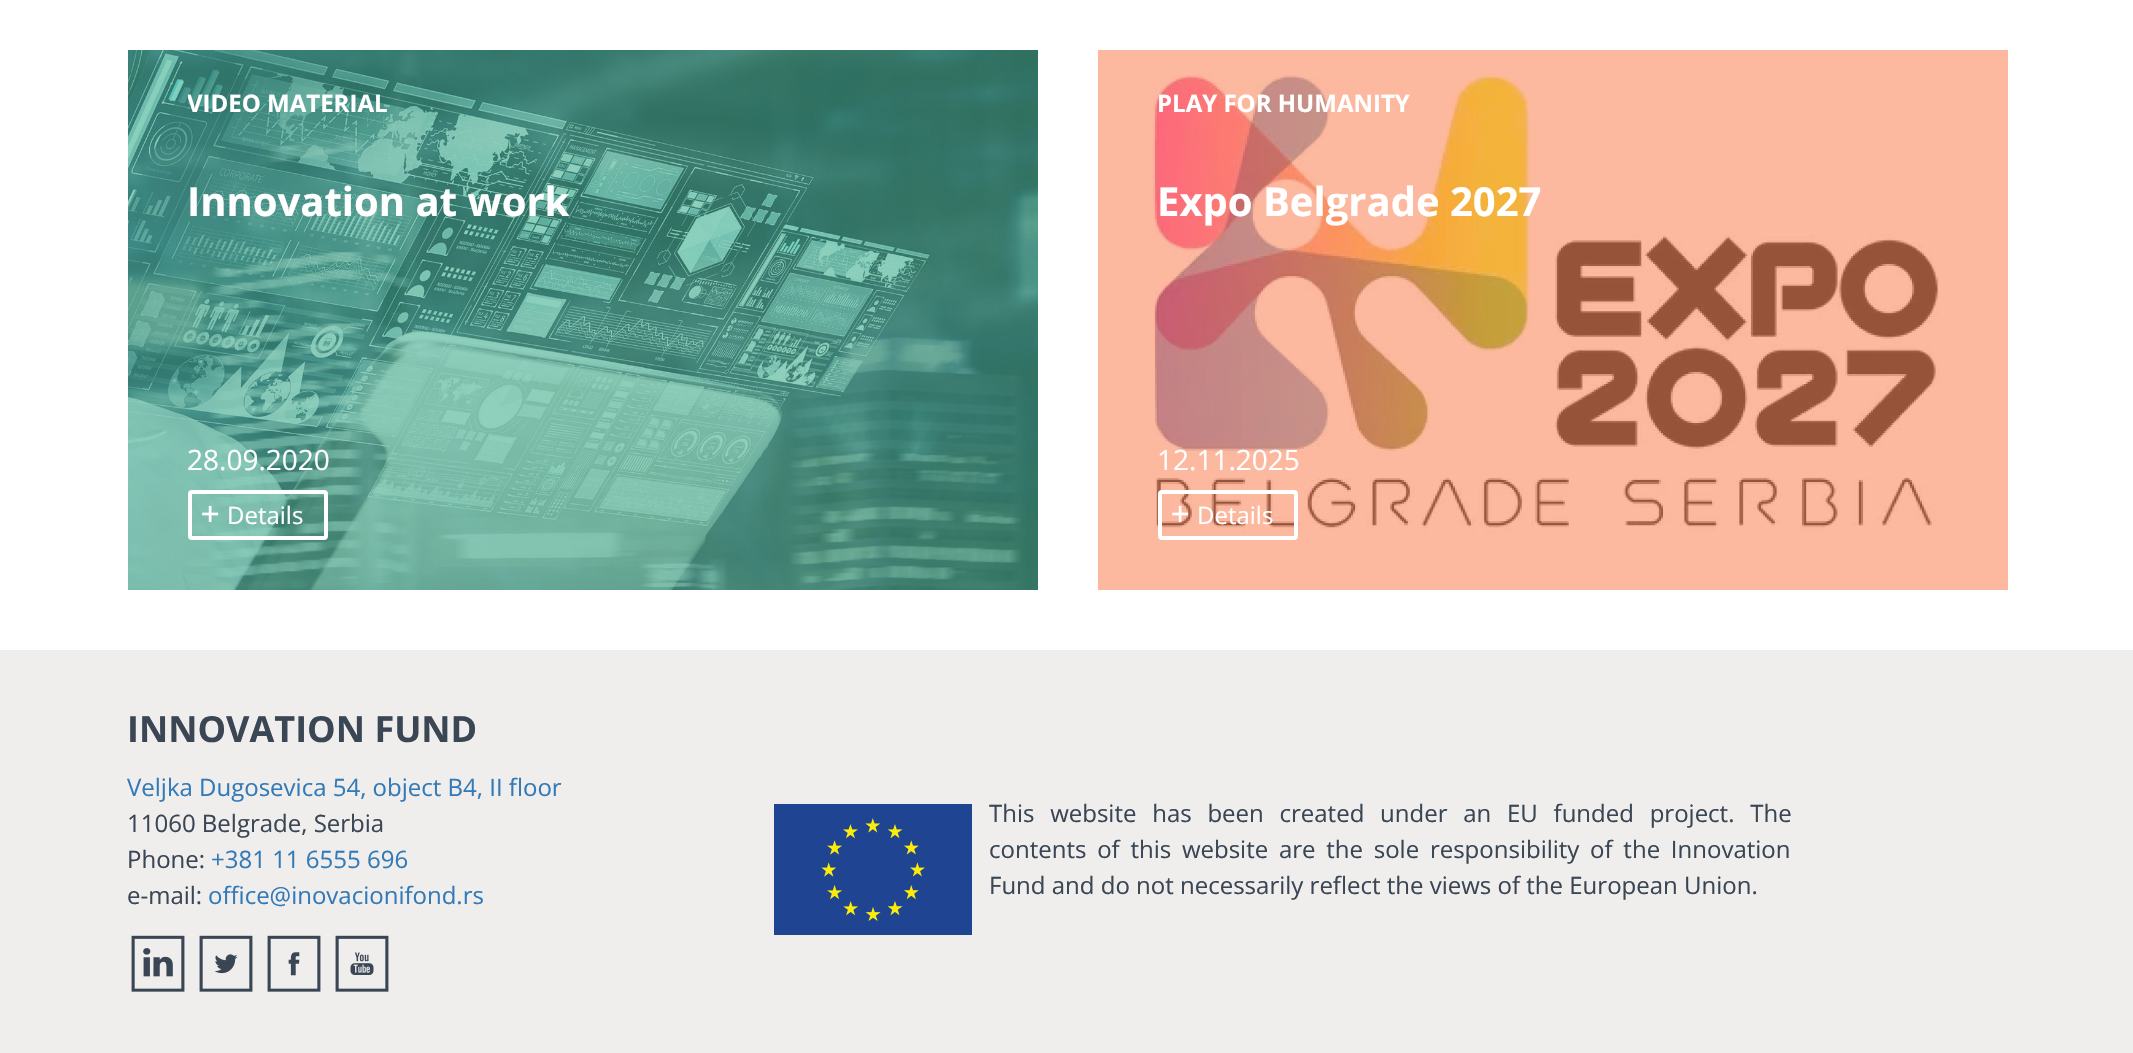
void draw(SkCanvas* canvas) {
    SkPaint paint;
    paint.setAntiAlias(true);
    auto spacedText = [&](const char* s, float x, float y, const SkFont& font, const SkPaint& ink, float letter, float word) {
        std::vector<SkGlyphID> glyphs(font.countText(s, strlen(s), SkTextEncoding::kUTF8));
        std::vector<float> xs(glyphs.size());
        font.textToGlyphs(s, strlen(s), SkTextEncoding::kUTF8, glyphs);
        font.getXPos(glyphs, xs, x);
        float extra = 0;
        for (size_t i = 0; i < glyphs.size(); i++) {
            xs[i] += extra;
            extra += letter + word * (glyphs[i] == font.unicharToGlyph(' '));
        }
        canvas->drawTextBlob(SkTextBlob::MakeFromPosHGlyphs(glyphs, xs, y, font), 0, 0, ink);
    };
    canvas->clear(0xFFFFFFFF);
    paint.setColor(0xFF44B090);
    canvas->drawRect(SkRect::MakeXYWH(128, 50, 910, 540), paint);
    canvas->drawImageRect(SkImages::DeferredFromEncodedData(SkData::MakeFromFileName("img1.png")), SkRect::MakeXYWH(128, 50, 910, 540), SkSamplingOptions());
    canvas->save();
    canvas->clipRect(SkRect::MakeXYWH(188, 90, 790, 52));
    SkFont font1(fontMgr->matchFamilyStyle("Open Sans", SkFontStyle::Bold()), 24);
    font1.setSubpixel(true);
    paint.setColor(0xFFFFFFFF);
    canvas->drawString("VIDEO MATERIAL", 187, 112, font1, paint);
    canvas->restore();
    SkFont font2(fontMgr->matchFamilyStyle("Open Sans", SkFontStyle::Bold()), 40);
    font2.setSubpixel(true);
    canvas->drawString("Innovation at work", 187, 216, font2, paint);
    SkFont font3(fontMgr->matchFamilyStyle("Open Sans", SkFontStyle::Normal()), 28);
    font3.setSubpixel(true);
    canvas->drawString("28.09.2020", 187, 470, font3, paint);
    paint.setStyle(SkPaint::kStroke_Style);
    paint.setStrokeWidth(4);
    canvas->drawRoundRect(SkRect::MakeXYWH(190, 492, 136, 46), 2, 2, paint);
    canvas->drawImageRect(SkImages::DeferredFromEncodedData(SkData::MakeFromFileName("img2.png")), SkRect::MakeXYWH(202, 505, 17, 17), SkSamplingOptions());
    SkFont font4(fontMgr->matchFamilyStyle("Open Sans", SkFontStyle::Normal()), 24);
    font4.setSubpixel(true);
    paint.setStyle(SkPaint::kFill_Style);
    canvas->drawString("Details", 227, 524, font4, paint);
    paint.setColor(0xFFFB8A60);
    canvas->drawRect(SkRect::MakeXYWH(1098, 50, 910, 540), paint);
    canvas->drawImageRect(SkImages::DeferredFromEncodedData(SkData::MakeFromFileName("img3.png")), SkRect::MakeXYWH(1098, 50, 910, 540), SkSamplingOptions());
    paint.setColor(0xFFFFFFFF);
    canvas->drawString("PLAY FOR HUMANITY", 1157, 112, font1, paint);
    canvas->drawString("Expo Belgrade 2027", 1157, 216, font2, paint);
    canvas->drawString("12.11.2025", 1157, 470, font3, paint);
    paint.setStyle(SkPaint::kStroke_Style);
    canvas->drawRoundRect(SkRect::MakeXYWH(1160, 492, 136, 46), 2, 2, paint);
    canvas->drawImageRect(SkImages::DeferredFromEncodedData(SkData::MakeFromFileName("img4.png")), SkRect::MakeXYWH(1172, 505, 17, 17), SkSamplingOptions());
    paint.setStyle(SkPaint::kFill_Style);
    canvas->drawString("Details", 1197, 524, font4, paint);
    paint.setColor(0xFFEFEEED);
    canvas->drawRect(SkRect::MakeXYWH(0, 650, 2133, 403), paint);
    SkFont font5(fontMgr->matchFamilyStyle("Open Sans", SkFontStyle::Bold()), 36);
    font5.setSubpixel(true);
    paint.setColor(0xFF3A4654);
    canvas->drawString("INNOVATION FUND", 127, 742, font5, paint);
    paint.setColor(0xFF337AB7);
    canvas->drawString("Veljka Dugosevica 54, object B4, II floor", 127, 796, font4, paint);
    paint.setColor(0xFF3A4654);
    canvas->drawString("11060 Belgrade, Serbia", 127, 832, font4, paint);
    canvas->drawString("Phone:", 127, 868, font4, paint);
    paint.setColor(0xFF337AB7);
    canvas->drawString("+381 11 6555 696", 211, 868, font4, paint);
    paint.setColor(0xFF3A4654);
    canvas->drawString("e-mail:", 127, 904, font4, paint);
    paint.setColor(0xFF337AB7);
    canvas->drawString("office@inovacionifond.rs", 208, 904, font4, paint);
    canvas->drawImageRect(SkImages::DeferredFromEncodedData(SkData::MakeFromFileName("img5.png")), SkRect::MakeXYWH(131, 935, 54, 57), SkSamplingOptions());
    canvas->drawImageRect(SkImages::DeferredFromEncodedData(SkData::MakeFromFileName("img6.png")), SkRect::MakeXYWH(199, 935, 54, 57), SkSamplingOptions());
    canvas->drawImageRect(SkImages::DeferredFromEncodedData(SkData::MakeFromFileName("img7.png")), SkRect::MakeXYWH(267, 935, 54, 57), SkSamplingOptions());
    canvas->drawImageRect(SkImages::DeferredFromEncodedData(SkData::MakeFromFileName("img8.png")), SkRect::MakeXYWH(335, 935, 54, 57), SkSamplingOptions());
    canvas->drawImageRect(SkImages::DeferredFromEncodedData(SkData::MakeFromFileName("img9.png")), SkRect::MakeXYWH(774, 804, 198, 131), SkSamplingOptions());
    paint.setColor(0xFF3A4654);
    spacedText("This website has been created under an EU funded project. The", 989, 822, font4, paint, 0, 9.5f);
    spacedText("contents of this website are the sole responsibility of the Innovation", 989, 858, font4, paint, 0, 4.5f);
    canvas->drawString("Fund and do not necessarily reflect the views of the European Union.", 989, 894, font4, paint);
}
